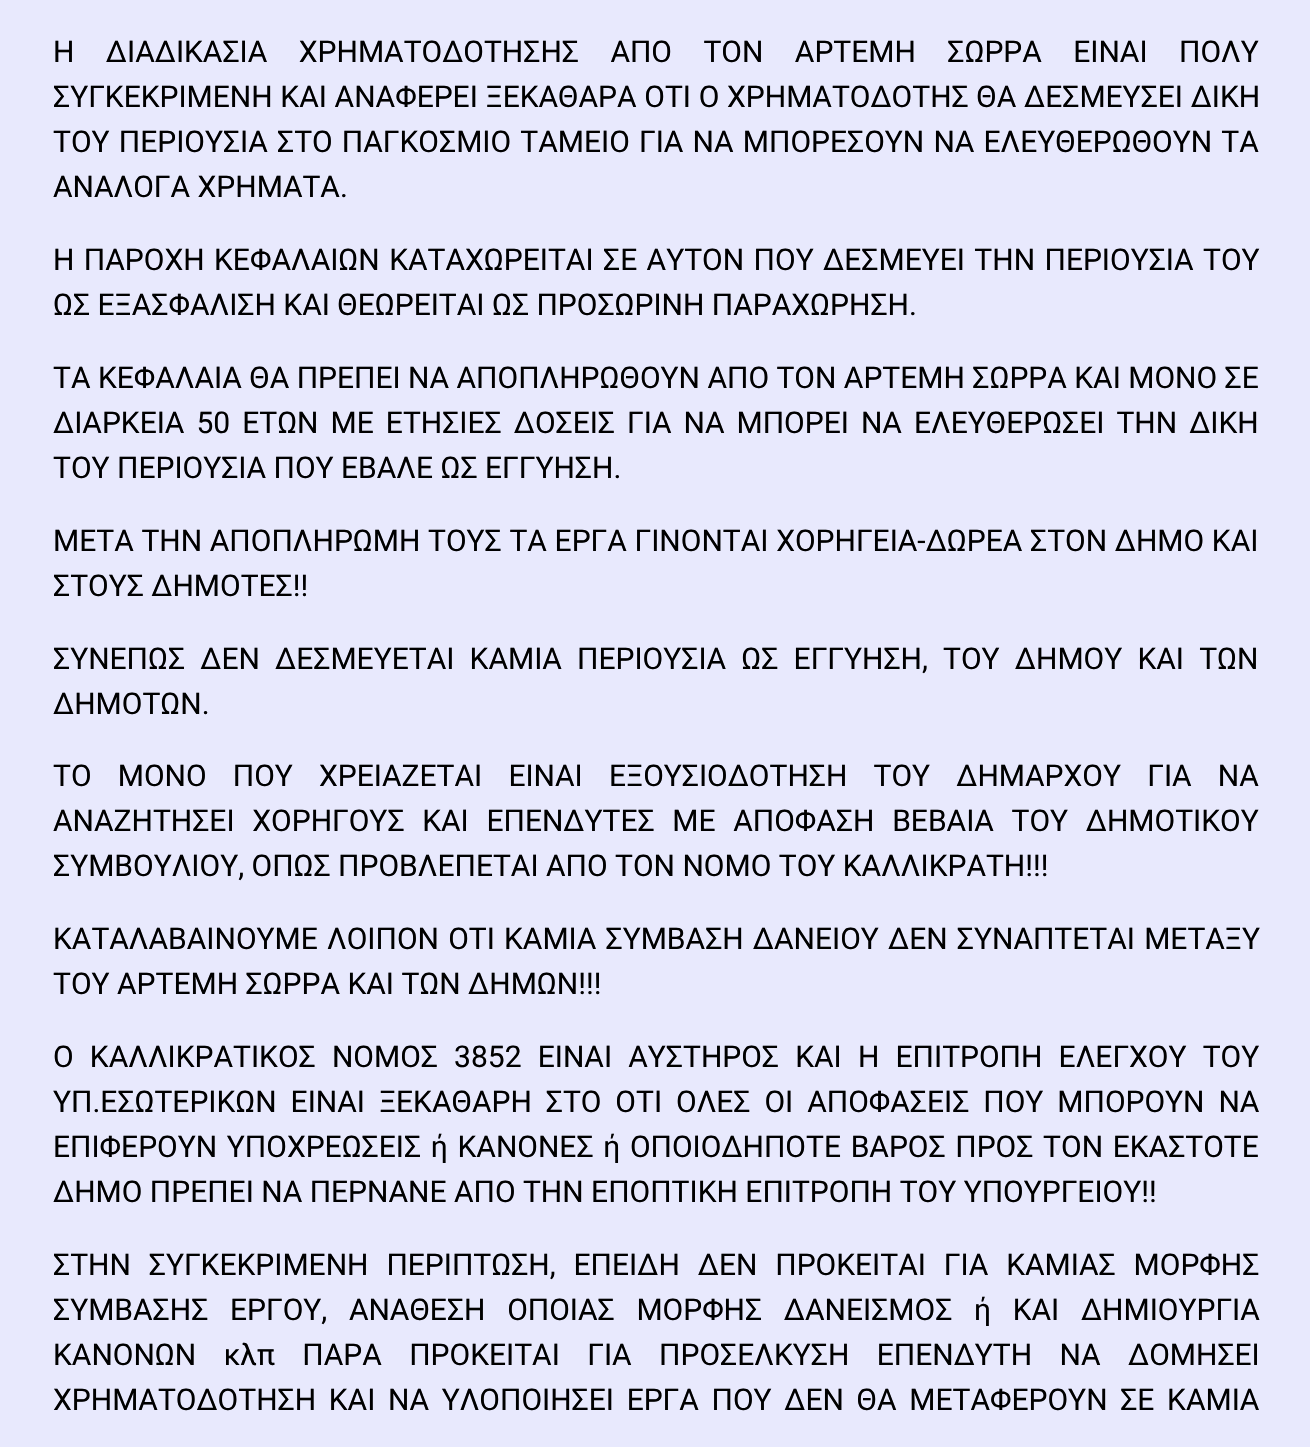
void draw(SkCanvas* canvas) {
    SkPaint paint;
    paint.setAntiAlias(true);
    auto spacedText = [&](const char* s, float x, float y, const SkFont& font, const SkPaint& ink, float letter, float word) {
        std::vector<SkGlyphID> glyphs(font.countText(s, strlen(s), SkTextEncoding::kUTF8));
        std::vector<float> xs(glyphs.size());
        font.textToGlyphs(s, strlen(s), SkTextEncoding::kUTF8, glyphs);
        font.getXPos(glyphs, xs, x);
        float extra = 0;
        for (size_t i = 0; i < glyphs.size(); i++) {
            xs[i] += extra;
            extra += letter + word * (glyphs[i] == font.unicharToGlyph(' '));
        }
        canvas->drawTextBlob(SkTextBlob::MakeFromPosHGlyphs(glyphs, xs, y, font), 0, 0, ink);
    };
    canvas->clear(0xFFE8E9FD);
    SkFont font1(fontMgr->matchFamilyStyle("Roboto", SkFontStyle::Normal()), 30);
    font1.setSubpixel(true);
    paint.setColor(0xFF000000);
    spacedText("Η ΔΙΑΔΙΚΑΣΙΑ ΧΡΗΜΑΤΟΔΟΤΗΣΗΣ ΑΠΟ ΤΟΝ ΑΡΤΕΜΗ ΣΩΡΡΑ ΕΙΝΑΙ ΠΟΛΥ", 53, 62, font1, paint, 0, 24);
    spacedText("ΣΥΓΚΕΚΡΙΜΕΝΗ ΚΑΙ ΑΝΑΦΕΡΕΙ ΞΕΚΑΘΑΡΑ ΟΤΙ Ο ΧΡΗΜΑΤΟΔΟΤΗΣ ΘΑ ΔΕΣΜΕΥΣΕΙ ΔΙΚΗ", 53, 107, font1, paint, 0, 0.25f);
    spacedText("ΤΟΥ ΠΕΡΙΟΥΣΙΑ ΣΤΟ ΠΑΓΚΟΣΜΙΟ ΤΑΜΕΙΟ ΓΙΑ ΝΑ ΜΠΟΡΕΣΟΥΝ ΝΑ ΕΛΕΥΘΕΡΩΘΟΥΝ ΤΑ", 53, 152, font1, paint, 0, 1.75f);
    canvas->drawString("ΑΝΑΛΟΓΑ ΧΡΗΜΑΤΑ.", 53, 197, font1, paint);
    spacedText("Η ΠΑΡΟΧΗ ΚΕΦΑΛΑΙΩΝ ΚΑΤΑΧΩΡΕΙΤΑΙ ΣΕ ΑΥΤΟΝ ΠΟΥ ΔΕΣΜΕΥΕΙ ΤΗΝ ΠΕΡΙΟΥΣΙΑ ΤΟΥ", 53, 270, font1, paint, 0, 2);
    canvas->drawString("ΩΣ ΕΞΑΣΦΑΛΙΣΗ ΚΑΙ ΘΕΩΡΕΙΤΑΙ ΩΣ ΠΡΟΣΩΡΙΝΗ ΠΑΡΑΧΩΡΗΣΗ.", 53, 315, font1, paint);
    canvas->drawString("ΤΑ ΚΕΦΑΛΑΙΑ ΘΑ ΠΡΕΠΕΙ ΝΑ ΑΠΟΠΛΗΡΩΘΟΥΝ ΑΠΟ ΤΟΝ ΑΡΤΕΜΗ ΣΩΡΡΑ ΚΑΙ ΜΟΝΟ ΣΕ", 53, 388, font1, paint);
    spacedText("ΔΙΑΡΚΕΙΑ 50 ΕΤΩΝ ΜΕ ΕΤΗΣΙΕΣ ΔΟΣΕΙΣ ΓΙΑ ΝΑ ΜΠΟΡΕΙ ΝΑ ΕΛΕΥΘΕΡΩΣΕΙ ΤΗΝ ΔΙΚΗ", 53, 433, font1, paint, 0, 4.6f);
    canvas->drawString("ΤΟΥ ΠΕΡΙΟΥΣΙΑ ΠΟΥ ΕΒΑΛΕ ΩΣ ΕΓΓΥΗΣΗ.", 53, 478, font1, paint);
    spacedText("ΜΕΤΑ ΤΗΝ ΑΠΟΠΛΗΡΩΜΗ ΤΟΥΣ ΤΑ ΕΡΓΑ ΓΙΝΟΝΤΑΙ ΧΟΡΗΓΕΙΑ-ΔΩΡΕΑ ΣΤΟΝ ΔΗΜΟ ΚΑΙ", 53, 551, font1, paint, 0, 0.25f);
    canvas->drawString("ΣΤΟΥΣ ΔΗΜΟΤΕΣ!!", 53, 596, font1, paint);
    spacedText("ΣΥΝΕΠΩΣ ΔΕΝ ΔΕΣΜΕΥΕΤΑΙ ΚΑΜΙΑ ΠΕΡΙΟΥΣΙΑ ΩΣ ΕΓΓΥΗΣΗ, ΤΟΥ ΔΗΜΟΥ ΚΑΙ ΤΩΝ", 53, 669, font1, paint, 0, 7.75f);
    canvas->drawString("ΔΗΜΟΤΩΝ.", 53, 714, font1, paint);
    spacedText("ΤΟ ΜΟΝΟ ΠΟΥ ΧΡΕΙΑΖΕΤΑΙ ΕΙΝΑΙ ΕΞΟΥΣΙΟΔΟΤΗΣΗ ΤΟΥ ΔΗΜΑΡΧΟΥ ΓΙΑ ΝΑ", 53, 786, font1, paint, 0, 18.75f);
    spacedText("ΑΝΑΖΗΤΗΣΕΙ ΧΟΡΗΓΟΥΣ ΚΑΙ ΕΠΕΝΔΥΤΕΣ ΜΕ ΑΠΟΦΑΣΗ ΒΕΒΑΙΑ ΤΟΥ ΔΗΜΟΤΙΚΟΥ", 53, 831, font1, paint, 0, 10.25f);
    canvas->drawString("ΣΥΜΒΟΥΛΙΟΥ, ΟΠΩΣ ΠΡΟΒΛΕΠΕΤΑΙ ΑΠΟ ΤΟΝ ΝΟΜΟ ΤΟΥ ΚΑΛΛΙΚΡΑΤΗ!!!", 53, 876, font1, paint);
    spacedText("ΚΑΤΑΛΑΒΑΙΝΟΥΜΕ ΛΟΙΠΟΝ ΟΤΙ ΚΑΜΙΑ ΣΥΜΒΑΣΗ ΔΑΝΕΙΟΥ ΔΕΝ ΣΥΝΑΠΤΕΤΑΙ ΜΕΤΑΞΥ", 53, 949, font1, paint, 0, 1.75f);
    canvas->drawString("ΤΟΥ ΑΡΤΕΜΗ ΣΩΡΡΑ ΚΑΙ ΤΩΝ ΔΗΜΩΝ!!!", 53, 994, font1, paint);
    spacedText("Ο ΚΑΛΛΙΚΡΑΤΙΚΟΣ ΝΟΜΟΣ 3852 ΕΙΝΑΙ ΑΥΣΤΗΡΟΣ ΚΑΙ Η ΕΠΙΤΡΟΠΗ ΕΛΕΓΧΟΥ ΤΟΥ", 53, 1067, font1, paint, 0, 8.75f);
    spacedText("ΥΠ.ΕΣΩΤΕΡΙΚΩΝ ΕΙΝΑΙ ΞΕΚΑΘΑΡΗ ΣΤΟ ΟΤΙ ΟΛΕΣ ΟΙ ΑΠΟΦΑΣΕΙΣ ΠΟΥ ΜΠΟΡΟΥΝ ΝΑ", 53, 1112, font1, paint, 0, 6.5f);
    spacedText("ΕΠΙΦΕΡΟΥΝ ΥΠΟΧΡΕΩΣΕΙΣ ή ΚΑΝΟΝΕΣ ή ΟΠΟΙΟΔΗΠΟΤΕ ΒΑΡΟΣ ΠΡΟΣ ΤΟΝ ΕΚΑΣΤΟΤΕ", 53, 1157, font1, paint, 0, 2.25f);
    canvas->drawString("ΔΗΜΟ ΠΡΕΠΕΙ ΝΑ ΠΕΡΝΑΝΕ ΑΠΟ ΤΗΝ ΕΠΟΠΤΙΚΗ ΕΠΙΤΡΟΠΗ ΤΟΥ ΥΠΟΥΡΓΕΙΟΥ!!", 53, 1202, font1, paint);
    spacedText("ΣΤΗΝ ΣΥΓΚΕΚΡΙΜΕΝΗ ΠΕΡΙΠΤΩΣΗ, ΕΠΕΙΔΗ ΔΕΝ ΠΡΟΚΕΙΤΑΙ ΓΙΑ ΚΑΜΙΑΣ ΜΟΡΦΗΣ", 53, 1275, font1, paint, 0, 10.5f);
    spacedText("ΣΥΜΒΑΣΗΣ ΕΡΓΟΥ, ΑΝΑΘΕΣΗ ΟΠΟΙΑΣ ΜΟΡΦΗΣ ΔΑΝΕΙΣΜΟΣ ή ΚΑΙ ΔΗΜΙΟΥΡΓΙΑ", 53, 1320, font1, paint, 0, 14.25f);
    spacedText("ΚΑΝΟΝΩΝ κλπ ΠΑΡΑ ΠΡΟΚΕΙΤΑΙ ΓΙΑ ΠΡΟΣΕΛΚΥΣΗ ΕΠΕΝΔΥΤΗ ΝΑ ΔΟΜΗΣΕΙ", 53, 1365, font1, paint, 0, 20);
    spacedText("ΧΡΗΜΑΤΟΔΟΤΗΣΗ ΚΑΙ ΝΑ ΥΛΟΠΟΙΗΣΕΙ ΕΡΓΑ ΠΟΥ ΔΕΝ ΘΑ ΜΕΤΑΦΕΡΟΥΝ ΣΕ ΚΑΜΙΑ", 53, 1410, font1, paint, 0, 5.25f);
}
